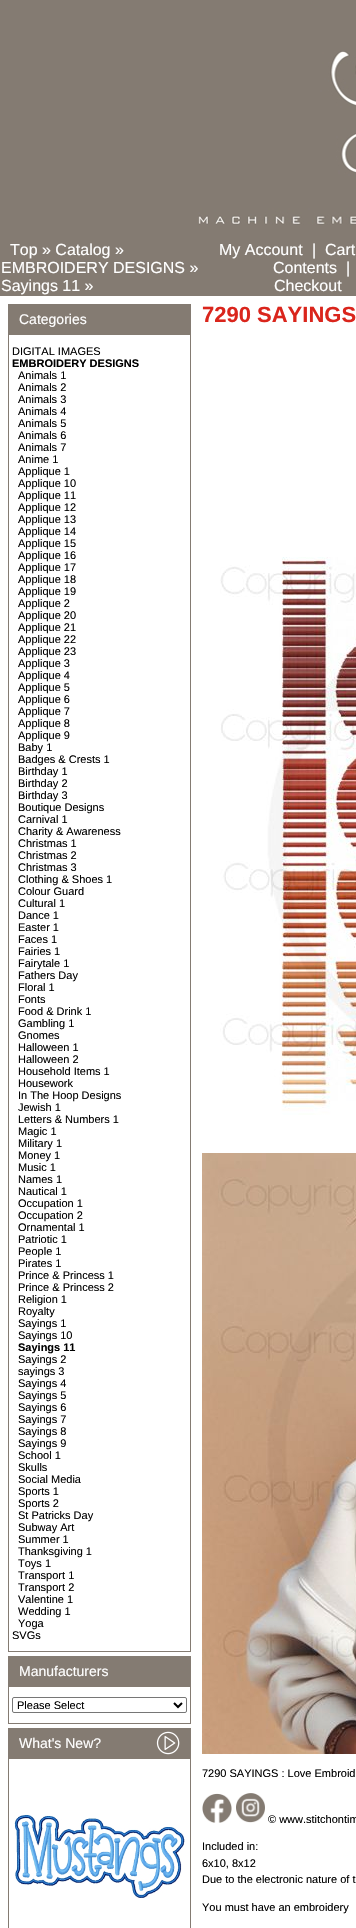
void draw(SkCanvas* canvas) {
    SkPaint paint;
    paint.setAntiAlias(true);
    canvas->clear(0xFFFFFFFF);
    paint.setColor(0xFF847B72);
    canvas->drawRect(SkRect::MakeXYWH(0, 0, 356, 240), paint);
    canvas->drawImageRect(SkImages::DeferredFromEncodedData(SkData::MakeFromFileName("img1.png")), SkRect::MakeXYWH(198, 51, 158, 174), SkSamplingOptions());
    canvas->drawRect(SkRect::MakeXYWH(0, 240, 356, 56), paint);
    SkFont font1(fontMgr->matchFamilyStyle("Liberation Sans", SkFontStyle::Normal()), 16);
    font1.setSubpixel(true);
    paint.setColor(0xFFFFFFFF);
    canvas->drawString("Top » Catalog »", 10, 255, font1, paint);
    canvas->drawString("EMBROIDERY DESIGNS »", 1, 273, font1, paint);
    canvas->drawString("Sayings 11 »", 1, 291, font1, paint);
    canvas->drawString("My Account", 219, 255, font1, paint);
    canvas->drawString("|", 312, 255, font1, paint);
    canvas->drawString("Cart", 325, 255, font1, paint);
    canvas->drawString("Contents", 273, 273, font1, paint);
    canvas->drawString("|", 346, 273, font1, paint);
    canvas->drawString("Checkout", 274, 291, font1, paint);
    paint.setColor(0xFF847B72);
    canvas->drawRect(SkRect::MakeXYWH(8, 304, 183, 1348), paint);
    SkFont font2(fontMgr->matchFamilyStyle("Liberation Sans", SkFontStyle::Normal()), 14);
    font2.setSubpixel(true);
    paint.setColor(0xFFFFFFFF);
    canvas->drawString("Categories", 19, 324, font2, paint);
    canvas->drawRect(SkRect::MakeXYWH(9, 335, 181, 1316), paint);
    SkFont font3(fontMgr->matchFamilyStyle("Liberation Sans", SkFontStyle::Normal()), 11);
    font3.setSubpixel(true);
    paint.setColor(0xFF000000);
    canvas->drawString("DIGITAL IMAGES", 12, 355, font3, paint);
    SkFont font4(fontMgr->matchFamilyStyle("Liberation Sans", SkFontStyle::Bold()), 11);
    font4.setSubpixel(true);
    canvas->drawString("EMBROIDERY DESIGNS", 12, 367, font4, paint);
    canvas->drawString("Animals 1", 18, 379, font3, paint);
    canvas->drawString("Animals 2", 18, 391, font3, paint);
    canvas->drawString("Animals 3", 18, 403, font3, paint);
    canvas->drawString("Animals 4", 18, 415, font3, paint);
    canvas->drawString("Animals 5", 18, 427, font3, paint);
    canvas->drawString("Animals 6", 18, 439, font3, paint);
    canvas->drawString("Animals 7", 18, 451, font3, paint);
    canvas->drawString("Anime 1", 18, 463, font3, paint);
    canvas->drawString("Applique 1", 18, 475, font3, paint);
    canvas->drawString("Applique 10", 18, 487, font3, paint);
    canvas->drawString("Applique 11", 18, 499, font3, paint);
    canvas->drawString("Applique 12", 18, 511, font3, paint);
    canvas->drawString("Applique 13", 18, 523, font3, paint);
    canvas->drawString("Applique 14", 18, 535, font3, paint);
    canvas->drawString("Applique 15", 18, 547, font3, paint);
    canvas->drawString("Applique 16", 18, 559, font3, paint);
    canvas->drawString("Applique 17", 18, 571, font3, paint);
    canvas->drawString("Applique 18", 18, 583, font3, paint);
    canvas->drawString("Applique 19", 18, 595, font3, paint);
    canvas->drawString("Applique 2", 18, 607, font3, paint);
    canvas->drawString("Applique 20", 18, 619, font3, paint);
    canvas->drawString("Applique 21", 18, 631, font3, paint);
    canvas->drawString("Applique 22", 18, 643, font3, paint);
    canvas->drawString("Applique 23", 18, 655, font3, paint);
    canvas->drawString("Applique 3", 18, 667, font3, paint);
    canvas->drawString("Applique 4", 18, 679, font3, paint);
    canvas->drawString("Applique 5", 18, 691, font3, paint);
    canvas->drawString("Applique 6", 18, 703, font3, paint);
    canvas->drawString("Applique 7", 18, 715, font3, paint);
    canvas->drawString("Applique 8", 18, 727, font3, paint);
    canvas->drawString("Applique 9", 18, 739, font3, paint);
    canvas->drawString("Baby 1", 18, 751, font3, paint);
    canvas->drawString("Badges & Crests 1", 18, 763, font3, paint);
    canvas->drawString("Birthday 1", 18, 775, font3, paint);
    canvas->drawString("Birthday 2", 18, 787, font3, paint);
    canvas->drawString("Birthday 3", 18, 799, font3, paint);
    canvas->drawString("Boutique Designs", 18, 811, font3, paint);
    canvas->drawString("Carnival 1", 18, 823, font3, paint);
    canvas->drawString("Charity & Awareness", 18, 835, font3, paint);
    canvas->drawString("Christmas 1", 18, 847, font3, paint);
    canvas->drawString("Christmas 2", 18, 859, font3, paint);
    canvas->drawString("Christmas 3", 18, 871, font3, paint);
    canvas->drawString("Clothing & Shoes 1", 18, 883, font3, paint);
    canvas->drawString("Colour Guard", 18, 895, font3, paint);
    canvas->drawString("Cultural 1", 18, 907, font3, paint);
    canvas->drawString("Dance 1", 18, 919, font3, paint);
    canvas->drawString("Easter 1", 18, 931, font3, paint);
    canvas->drawString("Faces 1", 18, 943, font3, paint);
    canvas->drawString("Fairies 1", 18, 955, font3, paint);
    canvas->drawString("Fairytale 1", 18, 967, font3, paint);
    canvas->drawString("Fathers Day", 18, 979, font3, paint);
    canvas->drawString("Floral 1", 18, 991, font3, paint);
    canvas->drawString("Fonts", 18, 1003, font3, paint);
    canvas->drawString("Food & Drink 1", 18, 1015, font3, paint);
    canvas->drawString("Gambling 1", 18, 1027, font3, paint);
    canvas->drawString("Gnomes", 18, 1039, font3, paint);
    canvas->drawString("Halloween 1", 18, 1051, font3, paint);
    canvas->drawString("Halloween 2", 18, 1063, font3, paint);
    canvas->drawString("Household Items 1", 18, 1075, font3, paint);
    canvas->drawString("Housework", 18, 1087, font3, paint);
    canvas->drawString("In The Hoop Designs", 18, 1099, font3, paint);
    canvas->drawString("Jewish 1", 18, 1111, font3, paint);
    canvas->drawString("Letters & Numbers 1", 18, 1123, font3, paint);
    canvas->drawString("Magic 1", 18, 1135, font3, paint);
    canvas->drawString("Military 1", 18, 1147, font3, paint);
    canvas->drawString("Money 1", 18, 1159, font3, paint);
    canvas->drawString("Music 1", 18, 1171, font3, paint);
    canvas->drawString("Names 1", 18, 1183, font3, paint);
    canvas->drawString("Nautical 1", 18, 1195, font3, paint);
    canvas->drawString("Occupation 1", 18, 1207, font3, paint);
    canvas->drawString("Occupation 2", 18, 1219, font3, paint);
    canvas->drawString("Ornamental 1", 18, 1231, font3, paint);
    canvas->drawString("Patriotic 1", 18, 1243, font3, paint);
    canvas->drawString("People 1", 18, 1255, font3, paint);
    canvas->drawString("Pirates 1", 18, 1267, font3, paint);
    canvas->drawString("Prince & Princess 1", 18, 1279, font3, paint);
    canvas->drawString("Prince & Princess 2", 18, 1291, font3, paint);
    canvas->drawString("Religion 1", 18, 1303, font3, paint);
    canvas->drawString("Royalty", 18, 1315, font3, paint);
    canvas->drawString("Sayings 1", 18, 1327, font3, paint);
    canvas->drawString("Sayings 10", 18, 1339, font3, paint);
    canvas->drawString("Sayings 11", 18, 1351, font4, paint);
    canvas->drawString("Sayings 2", 18, 1363, font3, paint);
    canvas->drawString("sayings 3", 18, 1375, font3, paint);
    canvas->drawString("Sayings 4", 18, 1387, font3, paint);
    canvas->drawString("Sayings 5", 18, 1399, font3, paint);
    canvas->drawString("Sayings 6", 18, 1411, font3, paint);
    canvas->drawString("Sayings 7", 18, 1423, font3, paint);
    canvas->drawString("Sayings 8", 18, 1435, font3, paint);
    canvas->drawString("Sayings 9", 18, 1447, font3, paint);
    canvas->drawString("School 1", 18, 1459, font3, paint);
    canvas->drawString("Skulls", 18, 1471, font3, paint);
    canvas->drawString("Social Media", 18, 1483, font3, paint);
    canvas->drawString("Sports 1", 18, 1495, font3, paint);
    canvas->drawString("Sports 2", 18, 1507, font3, paint);
    canvas->drawString("St Patricks Day", 18, 1519, font3, paint);
    canvas->drawString("Subway Art", 18, 1531, font3, paint);
    canvas->drawString("Summer 1", 18, 1543, font3, paint);
    canvas->drawString("Thanksgiving 1", 18, 1555, font3, paint);
    canvas->drawString("Toys 1", 18, 1567, font3, paint);
    canvas->drawString("Transport 1", 18, 1579, font3, paint);
    canvas->drawString("Transport 2", 18, 1591, font3, paint);
    canvas->drawString("Valentine 1", 18, 1603, font3, paint);
    canvas->drawString("Wedding 1", 18, 1615, font3, paint);
    canvas->drawString("Yoga", 18, 1627, font3, paint);
    canvas->drawString("SVGs", 12, 1639, font3, paint);
    paint.setColor(0xFF847B72);
    canvas->drawRect(SkRect::MakeXYWH(8, 1656, 183, 68), paint);
    paint.setColor(0xFFFFFFFF);
    canvas->drawString("Manufacturers", 19, 1676, font2, paint);
    canvas->drawRect(SkRect::MakeXYWH(9, 1687, 181, 36), paint);
    paint.setStyle(SkPaint::kStroke_Style);
    paint.setStrokeWidth(1);
    paint.setColor(0xFF767676);
    canvas->drawRoundRect(SkRect::MakeXYWH(12.5f, 1697.5f, 174, 15), 1.5f, 1.5f, paint);
    paint.setStrokeWidth(2);
    paint.setColor(0xFF000000);
    canvas->drawPath(SkPathBuilder().moveTo(174, 1703).lineTo(178, 1707).lineTo(182, 1703).detach(), paint);
    paint.setStyle(SkPaint::kFill_Style);
    canvas->drawString("Please Select", 17, 1709, font3, paint);
    paint.setColor(0xFF847B72);
    canvas->drawRect(SkRect::MakeXYWH(8, 1728, 183, 200), paint);
    paint.setColor(0xFFFFFFFF);
    canvas->drawString("What's New?", 19, 1748, font2, paint);
    canvas->drawImageRect(SkImages::DeferredFromEncodedData(SkData::MakeFromFileName("img2.png")), SkRect::MakeXYWH(156, 1731, 24, 24), SkSamplingOptions());
    canvas->drawRect(SkRect::MakeXYWH(9, 1759, 181, 169), paint);
    canvas->drawImageRect(SkImages::DeferredFromEncodedData(SkData::MakeFromFileName("img3.png")), SkRect::MakeXYWH(14, 1814, 171, 84), SkSamplingOptions());
    SkFont font5(fontMgr->matchFamilyStyle("Liberation Sans", SkFontStyle::Bold()), 22);
    font5.setSubpixel(true);
    paint.setColor(0xFFDA251C);
    canvas->drawString("7290 SAYINGS", 202, 322, font5, paint);
    canvas->drawImageRect(SkImages::DeferredFromEncodedData(SkData::MakeFromFileName("img4.png")), SkRect::MakeXYWH(220, 557, 136, 558), SkSamplingOptions());
    canvas->drawImageRect(SkImages::DeferredFromEncodedData(SkData::MakeFromFileName("img5.png")), SkRect::MakeXYWH(202, 1153, 154, 601), SkSamplingOptions());
    paint.setColor(0xFF000000);
    canvas->drawString("7290 SAYINGS : Love Embroid", 202, 1777, font3, paint);
    canvas->drawImageRect(SkImages::DeferredFromEncodedData(SkData::MakeFromFileName("img6.png")), SkRect::MakeXYWH(202, 1793, 30, 30), SkSamplingOptions());
    canvas->drawImageRect(SkImages::DeferredFromEncodedData(SkData::MakeFromFileName("img7.png")), SkRect::MakeXYWH(236, 1793, 29, 30), SkSamplingOptions());
    canvas->drawString("© www.stitchontim", 268, 1823, font3, paint);
    canvas->drawString("Included in:", 202, 1850, font3, paint);
    canvas->drawString("6x10, 8x12", 202, 1867, font3, paint);
    canvas->drawString("Due to the electronic nature of t", 202, 1883, font3, paint);
    canvas->drawString("You must have an embroidery", 202, 1911, font3, paint);
}
